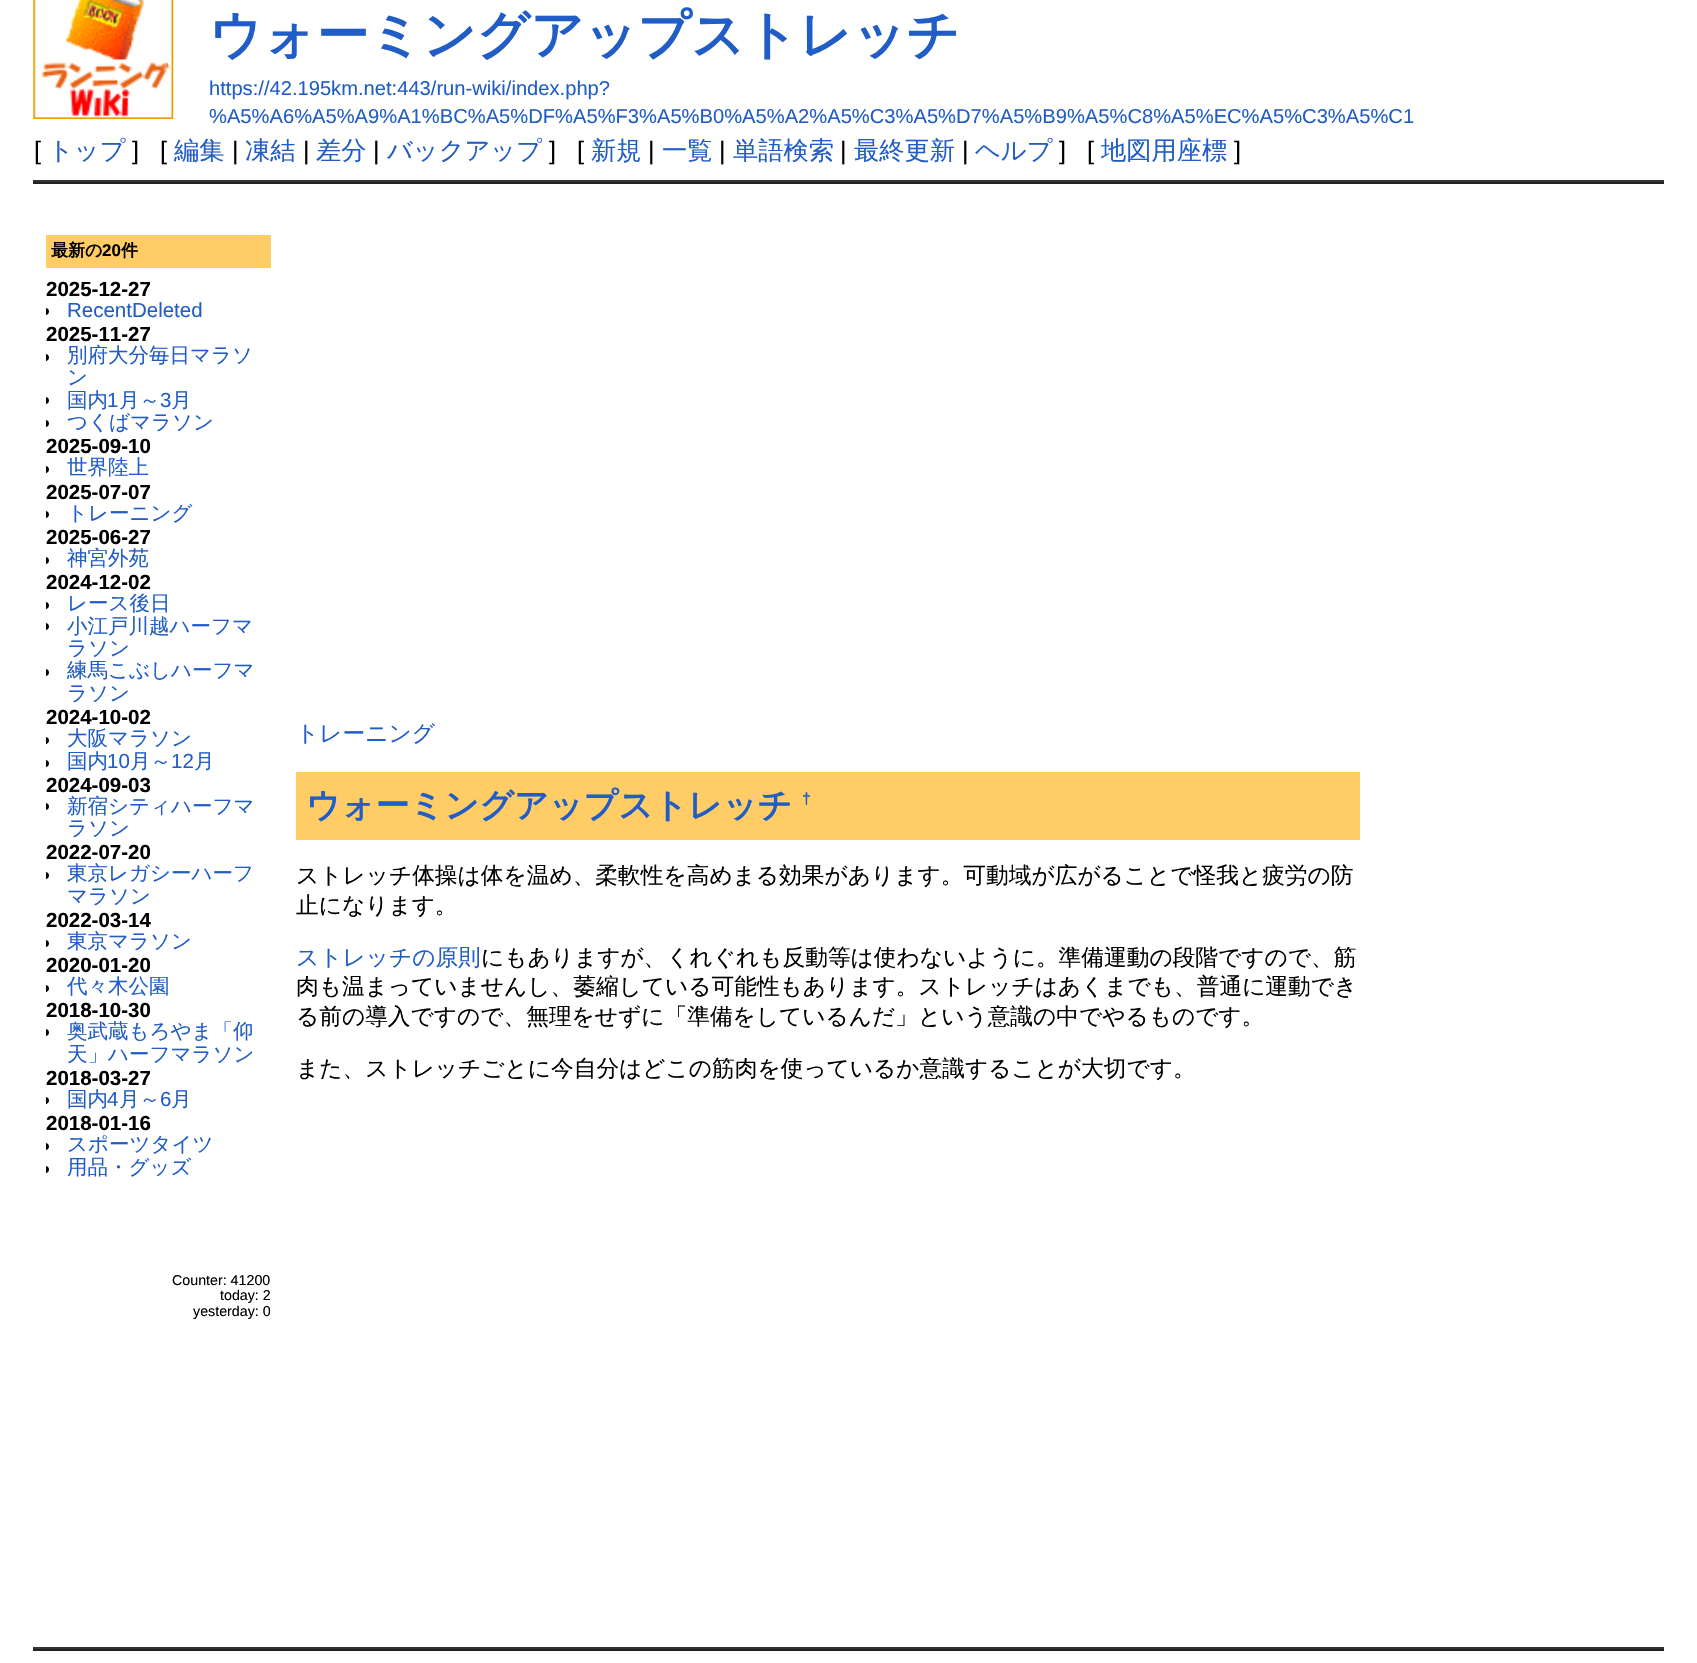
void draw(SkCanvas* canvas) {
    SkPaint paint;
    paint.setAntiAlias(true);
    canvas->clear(0xFFFFFFFF);
    canvas->drawImageRect(SkImages::DeferredFromEncodedData(SkData::MakeFromFileName("img1.png")), SkRect::MakeXYWH(33, 0, 141, 119), SkSamplingOptions());
    SkFont font1(fontMgr->matchFamilyStyle("WenQuanYi Zen Hei", SkFontStyle::Bold()), 52.5f);
    font1.setSubpixel(true);
    paint.setColor(0xFF215DC6);
    canvas->drawString("ウォーミングアップストレッチ", 209, 53, font1, paint);
    SkFont font2(fontMgr->matchFamilyStyle("Liberation Sans", SkFontStyle::Normal()), 20.15f);
    font2.setSubpixel(true);
    canvas->drawString("https://42.195km.net:443/run-wiki/index.php?", 209, 95, font2, paint);
    canvas->drawString("%A5%A6%A5%A9%A1%BC%A5%DF%A5%F3%A5%B0%A5%A2%A5%C3%A5%D7%A5%B9%A5%C8%A5%EC%A5%C3%A5%C1", 209, 123, font2, paint);
    SkFont font3(fontMgr->matchFamilyStyle("Liberation Sans", SkFontStyle::Normal()), 25.25f);
    font3.setSubpixel(true);
    paint.setColor(0xFF000000);
    canvas->drawString("[", 34, 159, font3, paint);
    SkFont font4(fontMgr->matchFamilyStyle("WenQuanYi Zen Hei", SkFontStyle(500, SkFontStyle::kNormal_Width, SkFontStyle::kUpright_Slant)), 25.25f);
    font4.setSubpixel(true);
    paint.setColor(0xFF215DC6);
    canvas->drawString("トップ", 48, 159, font4, paint);
    paint.setColor(0xFF000000);
    canvas->drawString("]", 132, 159, font3, paint);
    canvas->drawString("[", 160, 159, font3, paint);
    paint.setColor(0xFF215DC6);
    canvas->drawString("編集", 174, 159, font4, paint);
    paint.setColor(0xFF000000);
    canvas->drawString("|", 232, 159, font3, paint);
    paint.setColor(0xFF215DC6);
    canvas->drawString("凍結", 245, 159, font4, paint);
    paint.setColor(0xFF000000);
    canvas->drawString("|", 303, 159, font3, paint);
    paint.setColor(0xFF215DC6);
    canvas->drawString("差分", 316, 159, font4, paint);
    paint.setColor(0xFF000000);
    canvas->drawString("|", 373, 159, font3, paint);
    paint.setColor(0xFF215DC6);
    canvas->drawString("バックアップ", 387, 159, font4, paint);
    paint.setColor(0xFF000000);
    canvas->drawString("]", 549, 159, font3, paint);
    canvas->drawString("[", 577, 159, font3, paint);
    paint.setColor(0xFF215DC6);
    canvas->drawString("新規", 591, 159, font4, paint);
    paint.setColor(0xFF000000);
    canvas->drawString("|", 648, 159, font3, paint);
    paint.setColor(0xFF215DC6);
    canvas->drawString("一覧", 662, 159, font4, paint);
    paint.setColor(0xFF000000);
    canvas->drawString("|", 719, 159, font3, paint);
    paint.setColor(0xFF215DC6);
    canvas->drawString("単語検索", 733, 159, font4, paint);
    paint.setColor(0xFF000000);
    canvas->drawString("|", 840, 159, font3, paint);
    paint.setColor(0xFF215DC6);
    canvas->drawString("最終更新", 854, 159, font4, paint);
    paint.setColor(0xFF000000);
    canvas->drawString("|", 962, 159, font3, paint);
    paint.setColor(0xFF215DC6);
    canvas->drawString("ヘルプ", 975, 159, font4, paint);
    paint.setColor(0xFF000000);
    canvas->drawString("]", 1059, 159, font3, paint);
    canvas->drawString("[", 1087, 159, font3, paint);
    paint.setColor(0xFF215DC6);
    canvas->drawString("地図用座標", 1101, 159, font4, paint);
    paint.setColor(0xFF000000);
    canvas->drawString("]", 1234, 159, font3, paint);
    paint.setColor(0xFF333333);
    canvas->drawRect(SkRect::MakeXYWH(33, 180, 1631, 2), paint);
    paint.setColor(0xFF222222);
    canvas->drawRect(SkRect::MakeXYWH(33, 182, 1631, 2), paint);
    paint.setColor(0xFFFFCC66);
    canvas->drawRect(SkRect::MakeXYWH(46, 235, 225, 33), paint);
    SkFont font5(fontMgr->matchFamilyStyle("WenQuanYi Zen Hei", SkFontStyle::Bold()), 17);
    font5.setSubpixel(true);
    paint.setColor(0xFF000000);
    canvas->drawString("最新の", 51, 256, font5, paint);
    SkFont font6(fontMgr->matchFamilyStyle("Liberation Sans", SkFontStyle::Bold()), 17);
    font6.setSubpixel(true);
    canvas->drawString("20", 102, 256, font6, paint);
    canvas->drawString("件", 121, 256, font5, paint);
    SkFont font7(fontMgr->matchFamilyStyle("Liberation Sans", SkFontStyle::Bold()), 20.5f);
    font7.setSubpixel(true);
    canvas->drawString("2025-12-27", 46, 296, font7, paint);
    canvas->drawPath(SkPathBuilder().moveTo(46, 308).lineTo(45.5f, 308).cubicTo(47.5f, 308, 49, 309.5f, 49, 311.5f).cubicTo(49, 313.5f, 47.5f, 315, 45.5f, 315).lineTo(46, 315).close().detach(), paint);
    SkFont font8(fontMgr->matchFamilyStyle("Liberation Sans", SkFontStyle::Normal()), 20.5f);
    font8.setSubpixel(true);
    paint.setColor(0xFF215DC6);
    canvas->drawString("RecentDeleted", 67, 317, font8, paint);
    paint.setColor(0xFF000000);
    canvas->drawString("2025-11-27", 46, 341, font7, paint);
    canvas->drawPath(SkPathBuilder().moveTo(46, 354).lineTo(45.5f, 354).cubicTo(47.5f, 354, 49, 355.5f, 49, 357.5f).cubicTo(49, 359.5f, 47.5f, 361, 45.5f, 361).lineTo(46, 361).close().detach(), paint);
    SkFont font9(fontMgr->matchFamilyStyle("WenQuanYi Zen Hei", SkFontStyle(500, SkFontStyle::kNormal_Width, SkFontStyle::kUpright_Slant)), 20.5f);
    font9.setSubpixel(true);
    paint.setColor(0xFF215DC6);
    canvas->drawString("別府大分毎日マラソ", 67, 362, font9, paint);
    canvas->drawString("ン", 67, 384, font9, paint);
    paint.setColor(0xFF000000);
    canvas->drawPath(SkPathBuilder().moveTo(46, 397).lineTo(45.5f, 397).cubicTo(47.5f, 397, 49, 398.5f, 49, 400.5f).cubicTo(49, 402.5f, 47.5f, 404, 45.5f, 404).lineTo(46, 404).close().detach(), paint);
    paint.setColor(0xFF215DC6);
    canvas->drawString("国内", 67, 407, font9, paint);
    canvas->drawString("1", 107, 407, font8, paint);
    canvas->drawString("月～", 119, 407, font9, paint);
    canvas->drawString("3", 160, 407, font8, paint);
    canvas->drawString("月", 171, 407, font9, paint);
    paint.setColor(0xFF000000);
    canvas->drawPath(SkPathBuilder().moveTo(46, 420).lineTo(45.5f, 420).cubicTo(47.5f, 420, 49, 421.5f, 49, 423.5f).cubicTo(49, 425.5f, 47.5f, 427, 45.5f, 427).lineTo(46, 427).close().detach(), paint);
    paint.setColor(0xFF215DC6);
    canvas->drawString("つくばマラソン", 67, 429, font9, paint);
    paint.setColor(0xFF000000);
    canvas->drawString("2025-09-10", 46, 453, font7, paint);
    canvas->drawPath(SkPathBuilder().moveTo(46, 466).lineTo(45.5f, 466).cubicTo(47.5f, 466, 49, 467.5f, 49, 469.5f).cubicTo(49, 471.5f, 47.5f, 473, 45.5f, 473).lineTo(46, 473).close().detach(), paint);
    paint.setColor(0xFF215DC6);
    canvas->drawString("世界陸上", 67, 474, font9, paint);
    paint.setColor(0xFF000000);
    canvas->drawString("2025-07-07", 46, 499, font7, paint);
    canvas->drawPath(SkPathBuilder().moveTo(46, 511).lineTo(45.5f, 511).cubicTo(47.5f, 511, 49, 512.5f, 49, 514.5f).cubicTo(49, 516.5f, 47.5f, 518, 45.5f, 518).lineTo(46, 518).close().detach(), paint);
    paint.setColor(0xFF215DC6);
    canvas->drawString("トレーニング", 67, 520, font9, paint);
    paint.setColor(0xFF000000);
    canvas->drawString("2025-06-27", 46, 544, font7, paint);
    canvas->drawPath(SkPathBuilder().moveTo(46, 557).lineTo(45.5f, 557).cubicTo(47.5f, 557, 49, 558.5f, 49, 560.5f).cubicTo(49, 562.5f, 47.5f, 564, 45.5f, 564).lineTo(46, 564).close().detach(), paint);
    paint.setColor(0xFF215DC6);
    canvas->drawString("神宮外苑", 67, 565, font9, paint);
    paint.setColor(0xFF000000);
    canvas->drawString("2024-12-02", 46, 589, font7, paint);
    canvas->drawPath(SkPathBuilder().moveTo(46, 602).lineTo(45.5f, 602).cubicTo(47.5f, 602, 49, 603.5f, 49, 605.5f).cubicTo(49, 607.5f, 47.5f, 609, 45.5f, 609).lineTo(46, 609).close().detach(), paint);
    paint.setColor(0xFF215DC6);
    canvas->drawString("レース後日", 67, 610, font9, paint);
    paint.setColor(0xFF000000);
    canvas->drawPath(SkPathBuilder().moveTo(46, 623).lineTo(45.5f, 623).cubicTo(47.5f, 623, 49, 624.5f, 49, 626.5f).cubicTo(49, 628.5f, 47.5f, 630, 45.5f, 630).lineTo(46, 630).close().detach(), paint);
    paint.setColor(0xFF215DC6);
    canvas->drawString("小江戸川越ハーフマ", 67, 633, font9, paint);
    canvas->drawString("ラソン", 67, 655, font9, paint);
    paint.setColor(0xFF000000);
    canvas->drawPath(SkPathBuilder().moveTo(46, 669).lineTo(45.5f, 669).cubicTo(47.5f, 669, 49, 670.5f, 49, 672.5f).cubicTo(49, 674.5f, 47.5f, 676, 45.5f, 676).lineTo(46, 676).close().detach(), paint);
    paint.setColor(0xFF215DC6);
    canvas->drawString("練馬こぶしハーフマ", 67, 677, font9, paint);
    canvas->drawString("ラソン", 67, 700, font9, paint);
    paint.setColor(0xFF000000);
    canvas->drawString("2024-10-02", 46, 724, font7, paint);
    canvas->drawPath(SkPathBuilder().moveTo(46, 737).lineTo(45.5f, 737).cubicTo(47.5f, 737, 49, 738.5f, 49, 740.5f).cubicTo(49, 742.5f, 47.5f, 744, 45.5f, 744).lineTo(46, 744).close().detach(), paint);
    paint.setColor(0xFF215DC6);
    canvas->drawString("大阪マラソン", 67, 745, font9, paint);
    paint.setColor(0xFF000000);
    canvas->drawPath(SkPathBuilder().moveTo(46, 760).lineTo(45.5f, 760).cubicTo(47.5f, 760, 49, 761.5f, 49, 763.5f).cubicTo(49, 765.5f, 47.5f, 767, 45.5f, 767).lineTo(46, 767).close().detach(), paint);
    paint.setColor(0xFF215DC6);
    canvas->drawString("国内", 67, 768, font9, paint);
    canvas->drawString("10", 107, 768, font8, paint);
    canvas->drawString("月～", 130, 768, font9, paint);
    canvas->drawString("12", 171, 768, font8, paint);
    canvas->drawString("月", 194, 768, font9, paint);
    paint.setColor(0xFF000000);
    canvas->drawString("2024-09-03", 46, 792, font7, paint);
    canvas->drawPath(SkPathBuilder().moveTo(46, 803).lineTo(45.5f, 803).cubicTo(47.5f, 803, 49, 804.5f, 49, 806.5f).cubicTo(49, 808.5f, 47.5f, 810, 45.5f, 810).lineTo(46, 810).close().detach(), paint);
    paint.setColor(0xFF215DC6);
    canvas->drawString("新宿シティハーフマ", 67, 813, font9, paint);
    canvas->drawString("ラソン", 67, 835, font9, paint);
    paint.setColor(0xFF000000);
    canvas->drawString("2022-07-20", 46, 859, font7, paint);
    canvas->drawPath(SkPathBuilder().moveTo(46, 872).lineTo(45.5f, 872).cubicTo(47.5f, 872, 49, 873.5f, 49, 875.5f).cubicTo(49, 877.5f, 47.5f, 879, 45.5f, 879).lineTo(46, 879).close().detach(), paint);
    paint.setColor(0xFF215DC6);
    canvas->drawString("東京レガシーハーフ", 67, 880, font9, paint);
    canvas->drawString("マラソン", 67, 903, font9, paint);
    paint.setColor(0xFF000000);
    canvas->drawString("2022-03-14", 46, 927, font7, paint);
    canvas->drawPath(SkPathBuilder().moveTo(46, 940).lineTo(45.5f, 940).cubicTo(47.5f, 940, 49, 941.5f, 49, 943.5f).cubicTo(49, 945.5f, 47.5f, 947, 45.5f, 947).lineTo(46, 947).close().detach(), paint);
    paint.setColor(0xFF215DC6);
    canvas->drawString("東京マラソン", 67, 948, font9, paint);
    paint.setColor(0xFF000000);
    canvas->drawString("2020-01-20", 46, 972, font7, paint);
    canvas->drawPath(SkPathBuilder().moveTo(46, 985).lineTo(45.5f, 985).cubicTo(47.5f, 985, 49, 986.5f, 49, 988.5f).cubicTo(49, 990.5f, 47.5f, 992, 45.5f, 992).lineTo(46, 992).close().detach(), paint);
    paint.setColor(0xFF215DC6);
    canvas->drawString("代々木公園", 67, 993, font9, paint);
    paint.setColor(0xFF000000);
    canvas->drawString("2018-10-30", 46, 1017, font7, paint);
    canvas->drawPath(SkPathBuilder().moveTo(46, 1029).lineTo(45.5f, 1029).cubicTo(47.5f, 1029, 49, 1030.5f, 49, 1032.5f).cubicTo(49, 1034.5f, 47.5f, 1036, 45.5f, 1036).lineTo(46, 1036).close().detach(), paint);
    paint.setColor(0xFF215DC6);
    canvas->drawString("奥武蔵もろやま「仰", 67, 1038, font9, paint);
    canvas->drawString("天」ハーフマラソン", 67, 1061, font9, paint);
    paint.setColor(0xFF000000);
    canvas->drawString("2018-03-27", 46, 1085, font7, paint);
    canvas->drawPath(SkPathBuilder().moveTo(46, 1097).lineTo(45.5f, 1097).cubicTo(47.5f, 1097, 49, 1098.5f, 49, 1100.5f).cubicTo(49, 1102.5f, 47.5f, 1104, 45.5f, 1104).lineTo(46, 1104).close().detach(), paint);
    paint.setColor(0xFF215DC6);
    canvas->drawString("国内", 67, 1106, font9, paint);
    canvas->drawString("4", 107, 1106, font8, paint);
    canvas->drawString("月～", 119, 1106, font9, paint);
    canvas->drawString("6", 160, 1106, font8, paint);
    canvas->drawString("月", 171, 1106, font9, paint);
    paint.setColor(0xFF000000);
    canvas->drawString("2018-01-16", 46, 1130, font7, paint);
    canvas->drawPath(SkPathBuilder().moveTo(46, 1143).lineTo(45.5f, 1143).cubicTo(47.5f, 1143, 49, 1144.5f, 49, 1146.5f).cubicTo(49, 1148.5f, 47.5f, 1150, 45.5f, 1150).lineTo(46, 1150).close().detach(), paint);
    paint.setColor(0xFF215DC6);
    canvas->drawString("スポーツタイツ", 67, 1151, font9, paint);
    paint.setColor(0xFF000000);
    canvas->drawPath(SkPathBuilder().moveTo(46, 1166).lineTo(45.5f, 1166).cubicTo(47.5f, 1166, 49, 1167.5f, 49, 1169.5f).cubicTo(49, 1171.5f, 47.5f, 1173, 45.5f, 1173).lineTo(46, 1173).close().detach(), paint);
    paint.setColor(0xFF215DC6);
    canvas->drawString("用品・グッズ", 67, 1174, font9, paint);
    SkFont font10(fontMgr->matchFamilyStyle("Liberation Sans", SkFontStyle::Normal()), 14.25f);
    font10.setSubpixel(true);
    paint.setColor(0xFF000000);
    canvas->drawString("Counter: 41200", 172, 1285, font10, paint);
    canvas->drawString("today: 2", 220, 1300, font10, paint);
    canvas->drawString("yesterday: 0", 193, 1316, font10, paint);
    SkFont font11(fontMgr->matchFamilyStyle("WenQuanYi Zen Hei", SkFontStyle(500, SkFontStyle::kNormal_Width, SkFontStyle::kUpright_Slant)), 22.7f);
    font11.setSubpixel(true);
    paint.setColor(0xFF215DC6);
    canvas->drawString("トレーニング", 296, 741, font11, paint);
    paint.setColor(0xFFFFCC66);
    canvas->drawRect(SkRect::MakeXYWH(296, 772, 1064, 68), paint);
    SkFont font12(fontMgr->matchFamilyStyle("WenQuanYi Zen Hei", SkFontStyle::Bold()), 34);
    font12.setSubpixel(true);
    paint.setColor(0xFF215DC6);
    canvas->drawString("ウォーミングアップストレッチ", 306, 817, font12, paint);
    SkFont font13(fontMgr->matchFamilyStyle("Liberation Sans", SkFontStyle::Bold()), 16);
    font13.setSubpixel(true);
    canvas->drawString("†", 802, 804, font13, paint);
    paint.setColor(0xFF000000);
    canvas->drawString("ストレッチ体操は体を温め、柔軟性を高めまる効果があります。可動域が広がることで怪我と疲労の防", 296, 883, font11, paint);
    canvas->drawString("止になります。", 296, 913, font11, paint);
    paint.setColor(0xFF215DC6);
    canvas->drawString("ストレッチの原則", 296, 965, font11, paint);
    paint.setColor(0xFF000000);
    canvas->drawString("にもありますが、くれぐれも反動等は使わないように。準備運動の段階ですので、筋", 481, 965, font11, paint);
    canvas->drawString("肉も温まっていませんし、萎縮している可能性もあります。ストレッチはあくまでも、普通に運動でき", 296, 994, font11, paint);
    canvas->drawString("る前の導入ですので、無理をせずに「準備をしているんだ」という意識の中でやるものです。", 296, 1024, font11, paint);
    canvas->drawString("また、ストレッチごとに今自分はどこの筋肉を使っているか意識することが大切です。", 296, 1076, font11, paint);
    paint.setColor(0xFF333333);
    canvas->drawRect(SkRect::MakeXYWH(33, 1647, 1631, 2), paint);
    paint.setColor(0xFF222222);
    canvas->drawRect(SkRect::MakeXYWH(33, 1649, 1631, 2), paint);
}
